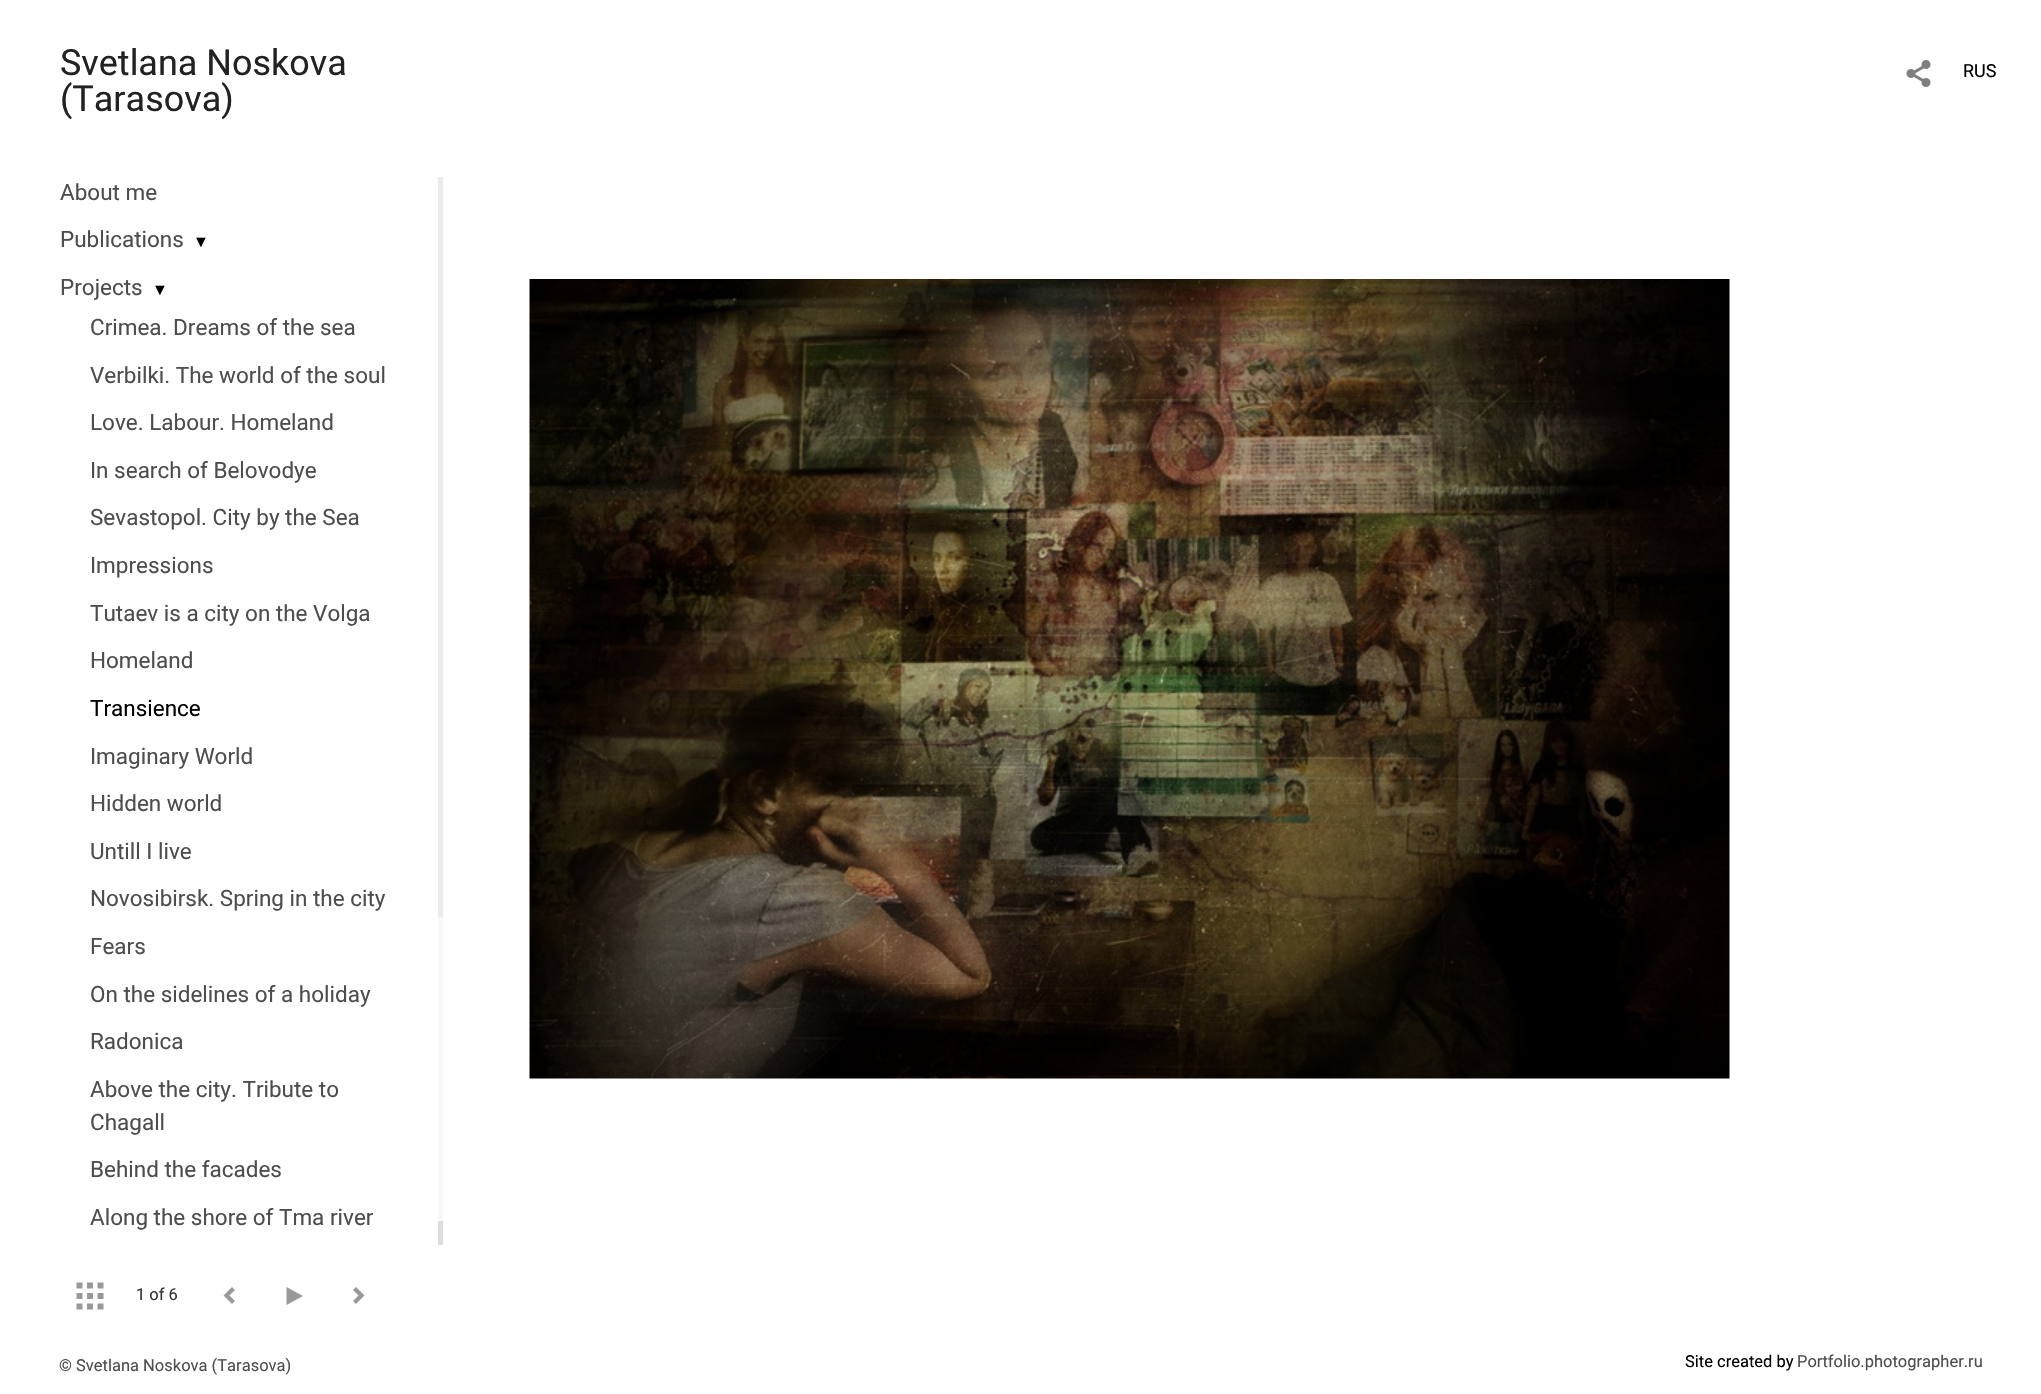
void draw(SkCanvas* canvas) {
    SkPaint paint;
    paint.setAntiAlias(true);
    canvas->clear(0xFFFFFFFF);
    SkFont font1(fontMgr->matchFamilyStyle("Roboto", SkFontStyle::Normal()), 36);
    font1.setSubpixel(true);
    paint.setColor(0xFF222222);
    canvas->drawString("Svetlana Noskova", 60, 75, font1, paint);
    canvas->drawString("(Tarasova)", 60, 111, font1, paint);
    SkFont font2(fontMgr->matchFamilyStyle("Roboto", SkFontStyle::Normal()), 22.5f);
    font2.setSubpixel(true);
    paint.setColor(0xFF4D4D4D);
    canvas->drawString("About me", 60, 200, font2, paint);
    canvas->drawString("Publications", 60, 247, font2, paint);
    SkFont font3(fontMgr->matchFamilyStyle("Liberation Serif", SkFontStyle::Normal()), 16);
    font3.setSubpixel(true);
    paint.setColor(0xFF000000);
    canvas->drawString("▼", 193, 247, font3, paint);
    paint.setColor(0xFF4D4D4D);
    canvas->drawString("Projects", 60, 295, font2, paint);
    paint.setColor(0xFF000000);
    canvas->drawString("▼", 152, 295, font3, paint);
    paint.setColor(0xFF4D4D4D);
    canvas->drawString("Crimea. Dreams of the sea", 90, 335, font2, paint);
    canvas->drawString("Verbilki. The world of the soul", 90, 383, font2, paint);
    canvas->drawString("Love. Labour. Homeland", 90, 430, font2, paint);
    canvas->drawString("In search of Belovodye", 90, 478, font2, paint);
    canvas->drawString("Sevastopol. City by the Sea", 90, 525, font2, paint);
    canvas->drawString("Impressions", 90, 573, font2, paint);
    canvas->drawString("Tutaev is a city on the Volga", 90, 621, font2, paint);
    canvas->drawString("Homeland", 90, 668, font2, paint);
    paint.setColor(0xFF000000);
    canvas->drawString("Transience", 90, 716, font2, paint);
    paint.setColor(0xFF4D4D4D);
    canvas->drawString("Imaginary World", 90, 764, font2, paint);
    canvas->drawString("Hidden world", 90, 811, font2, paint);
    canvas->drawString("Untill I live", 90, 859, font2, paint);
    canvas->drawString("Novosibirsk. Spring in the city", 90, 906, font2, paint);
    canvas->drawString("Fears", 90, 954, font2, paint);
    canvas->drawString("On the sidelines of a holiday", 90, 1002, font2, paint);
    canvas->drawString("Radonica", 90, 1049, font2, paint);
    canvas->drawString("Above the city. Tribute to", 90, 1097, font2, paint);
    canvas->drawString("Chagall", 90, 1130, font2, paint);
    canvas->drawString("Behind the facades", 90, 1177, font2, paint);
    canvas->drawString("Along the shore of Tma river", 90, 1225, font2, paint);
    paint.setColor(0xFFEBEBEB);
    canvas->drawRect(SkRect::MakeXYWH(438, 177, 5, 740), paint);
    paint.setColor(0xFFF8F8F8);
    canvas->drawRect(SkRect::MakeXYWH(438, 917, 5, 304), paint);
    paint.setColor(0xFFDDDDDD);
    canvas->drawRect(SkRect::MakeXYWH(438, 1221, 5, 24), paint);
    canvas->drawImageRect(SkImages::DeferredFromEncodedData(SkData::MakeFromFileName("img1.png")), SkRect::MakeXYWH(76, 1282, 28, 28), SkSamplingOptions());
    SkFont font4(fontMgr->matchFamilyStyle("Roboto", SkFontStyle::Normal()), 16.5f);
    font4.setSubpixel(true);
    paint.setColor(0xFF333333);
    canvas->drawString("1 of 6", 136, 1300, font4, paint);
    canvas->drawImageRect(SkImages::DeferredFromEncodedData(SkData::MakeFromFileName("img2.png")), SkRect::MakeXYWH(223, 1287, 12, 17), SkSamplingOptions());
    paint.setColor(0xFF999999);
    canvas->drawPath(SkPathBuilder().moveTo(303, 1296).lineTo(286.5f, 1305).lineTo(286.5f, 1287).close().detach(), paint);
    canvas->drawImageRect(SkImages::DeferredFromEncodedData(SkData::MakeFromFileName("img3.png")), SkRect::MakeXYWH(353, 1287, 12, 17), SkSamplingOptions());
    canvas->drawImageRect(SkImages::DeferredFromEncodedData(SkData::MakeFromFileName("img4.png")), SkRect::MakeXYWH(1906, 60, 25, 27), SkSamplingOptions());
    SkFont font5(fontMgr->matchFamilyStyle("Roboto", SkFontStyle::Normal()), 18);
    font5.setSubpixel(true);
    paint.setColor(0xFF000000);
    canvas->drawString("RUS", 1963, 77, font5, paint);
    canvas->drawImageRect(SkImages::DeferredFromEncodedData(SkData::MakeFromFileName("img5.png")), SkRect::MakeXYWH(529, 279, 1201, 800), SkSamplingOptions());
    paint.setColor(0xFF4D4D4D);
    canvas->drawString("© Svetlana Noskova (Tarasova)", 59, 1371, font4, paint);
    paint.setColor(0xFF000000);
    canvas->drawString("Site created by", 1685, 1367, font4, paint);
    paint.setColor(0xFF4D4D4D);
    canvas->drawString("Portfolio.photographer.ru", 1797, 1367, font4, paint);
}
